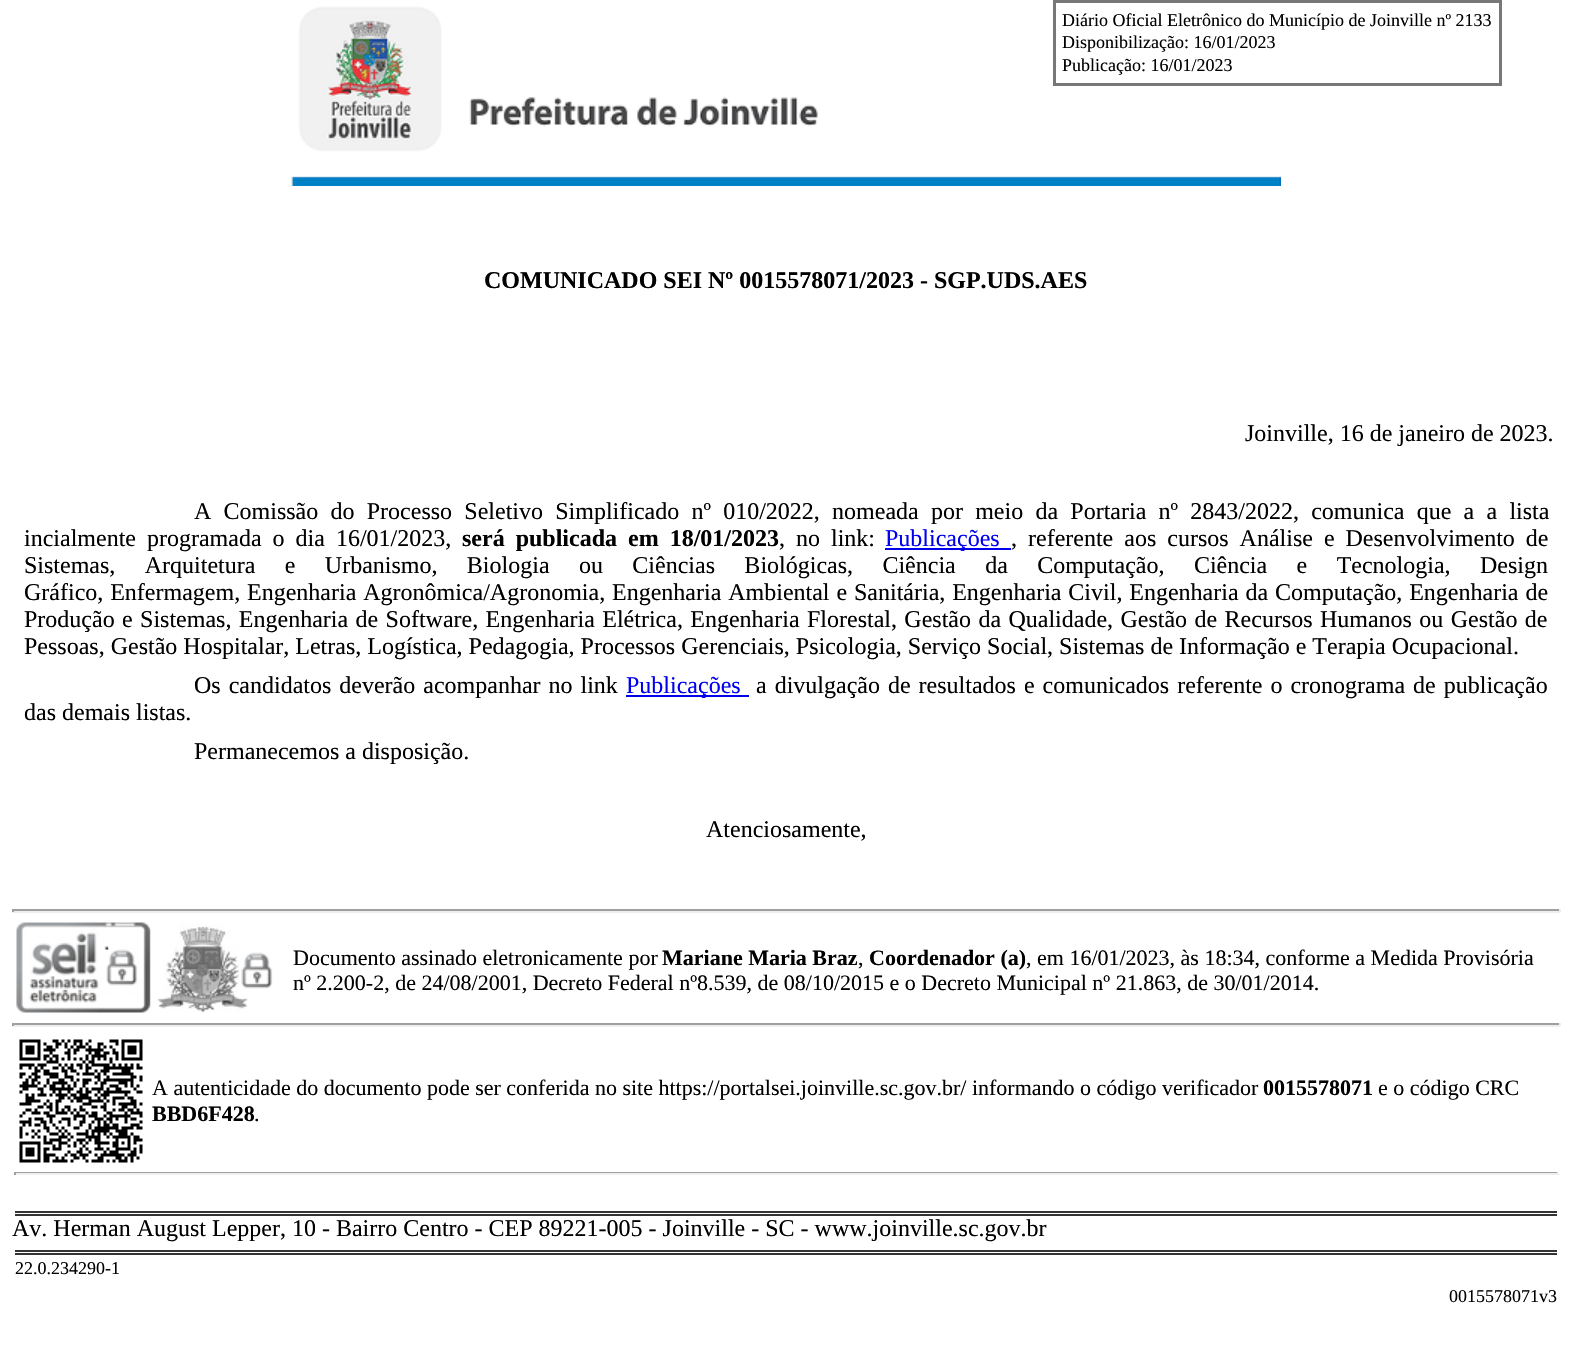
void draw(SkCanvas* c) {
SkPaint p;
p.setAntiAlias(true);
auto F=[&](const char* family, int weight, float size, bool italic = false){SkFontStyle style(weight, SkFontStyle::kNormal_Width,italic ? SkFontStyle::kItalic_Slant : SkFontStyle::kUpright_Slant);SkFont result(fontMgr->matchFamilyStyle(family, style), size);result.setSubpixel(true);return result;};
auto T=[&](const char* s, float x, float y, const SkFont& font){c->drawString(s, x, y, font, p);};
auto L=[&](const char* s, float x, float y, const SkFont& font, const SkPaint& ink, float letter, float word){std::vector<SkGlyphID> glyphs(font.countText(s, strlen(s), SkTextEncoding::kUTF8));std::vector<float> xs(glyphs.size());font.textToGlyphs(s, strlen(s), SkTextEncoding::kUTF8, glyphs);font.getXPos(glyphs, xs, x);float extra = 0;for (size_t i = 0; i < glyphs.size(); i++) {xs[i] += extra;extra += letter + word * (glyphs[i] == font.unicharToGlyph(' '));}c->drawTextBlob(SkTextBlob::MakeFromPosHGlyphs(glyphs, xs, y, font), 0, 0, ink);};
auto R=[&](float x, float y, float w, float h){c->drawRect(SkRect::MakeXYWH(x, y, w, h), p);};
auto I=[&](const char* path, float x, float y, float w, float h){auto image = SkImages::DeferredFromEncodedData(SkData::MakeFromFileName(path));c->drawImageRect(image, SkRect::MakeXYWH(x, y, w, h), SkSamplingOptions());};
c->clear(0xffffffff);
I("1.png",291,6,990,180);
p.setStroke(true);
p.setStrokeWidth(3);
p.setColor(0xff777777);
c->drawRect(SkRect::MakeXYWH(1054.5,1.5,446,83),p);
auto f1 = F("Liberation Serif",400,18);
p.setStroke(false);
p.setColor(0xff000000);
T("Diário Oficial Eletrônico do Município de Joinville nº 2133",1062,26,f1);
T("Disponibilização: 16/01/2023",1062,48,f1);
T("Publicação: 16/01/2023",1062,71,f1);
auto f2 = F("Liberation Serif",700,24);
T("COMUNICADO SEI Nº 0015578071/2023 - SGP.UDS.AES",484,288,f2);
auto f3 = F("Liberation Serif",400,24);
T("Joinville, 16 de janeiro de 2023.",1245,441,f3);
L("A Comissão do Processo Seletivo Simplificado nº 010/2022, nomeada por meio da Portaria nº 2843/2022, comunica que a a lista",194,519,f3,p,0,6.25);
L("incialmente programada o dia 16/01/2023,",24,546,f3,p,0,5);
L("será publicada em 18/01/2023",462,546,f2,p,0,5);
L(", no link:",779,546,f3,p,0,5);
p.setColor(0xff0000ee);
R(885,548,126,2);
T("Publicações",885,546,f3);
p.setColor(0xff000000);
L(", referente aos cursos Análise e Desenvolvimento de",1011,546,f3,p,0,5);
L("Sistemas, Arquitetura e Urbanismo, Biologia ou Ciências Biológicas, Ciência da Computação, Ciência e Tecnologia, Design",24,573,f3,p,0,23.4);
L("Gráfico, Enfermagem, Engenharia Agronômica/Agronomia, Engenharia Ambiental e Sanitária, Engenharia Civil, Engenharia da Computação, Engenharia de",24,600,f3,p,0,.9);
L("Produção e Sistemas, Engenharia de Software, Engenharia Elétrica, Engenharia Florestal, Gestão da Qualidade, Gestão de Recursos Humanos ou Gestão de",24,627,f3,p,0,1.4);
T("Pessoas, Gestão Hospitalar, Letras, Logística, Pedagogia, Processos Gerenciais, Psicologia, Serviço Social, Sistemas de Informação e Terapia Ocupacional.",24,654,f3);
L("Os candidatos deverão acompanhar no link",194,693,f3,p,0,2);
p.setColor(0xff0000ee);
R(626,695,123,2);
T("Publicações",626,693,f3);
p.setColor(0xff000000);
L("a divulgação de resultados e comunicados referente o cronograma de publicação",756,693,f3,p,0,2);
T("das demais listas.",24,720,f3);
T("Permanecemos a disposição.",194,759,f3);
T("Atenciosamente,",706,837,f3);
p.setColor(0xff9f9f9f);
R(12,909,1548,2);
p.setColor(0xffeeeeee);
R(1559,909,2,3);
R(12,911,1548,2);
p.setColor(0xff9f9f9f);
R(12,909,2,3);
I("2.png",16,922,257,91);
auto f4 = F("Liberation Serif",400,22);
p.setColor(0xff000000);
T("Documento assinado eletronicamente por",293,965,f4);
auto f5 = F("Liberation Serif",700,22);
T("Mariane Maria Braz",662,965,f5);
T(",",858,965,f4);
T("Coordenador (a)",869,965,f5);
T(", em 16/01/2023, às 18:34, conforme a Medida Provisória",1026,965,f4);
T("nº 2.200-2, de 24/08/2001, Decreto Federal nº8.539, de 08/10/2015 e o Decreto Municipal nº 21.863, de 30/01/2014.",293,990,f4);
p.setColor(0xff9f9f9f);
R(12,1023,1548,2);
p.setColor(0xffeeeeee);
R(1559,1023,2,3);
R(12,1025,1548,2);
p.setColor(0xff9f9f9f);
R(12,1023,2,3);
I("3.png",19,1039,124,124);
p.setColor(0xff000000);
T("A autenticidade do documento pode ser conferida no site https://portalsei.joinville.sc.gov.br/ informando o código verificador",152,1095,f4);
T("0015578071",1263,1095,f5);
T("e o código CRC",1378,1095,f4);
T("BBD6F428",152,1121,f5);
T(".",254,1121,f4);
p.setColor(0xff9f9f9f);
R(14,1172,1545,1);
p.setColor(0xffeeeeee);
R(1557,1172,2,3);
R(14,1173,1545,2);
p.setColor(0xff9f9f9f);
R(14,1172,2,3);
p.setColor(0xff333333);
R(15,1211,1542,2);
R(15,1214,1542,2);
p.setColor(0xff000000);
T("Av. Herman August Lepper, 10 - Bairro Centro - CEP 89221-005 - Joinville - SC - www.joinville.sc.gov.br",12,1236,f3);
p.setColor(0xff333333);
R(15,1250,1542,2);
R(15,1253,1542,2);
p.setColor(0xff000000);
T("22.0.234290-1",15,1274,f1);
T("0015578071v3",1449,1302,f1);
}
